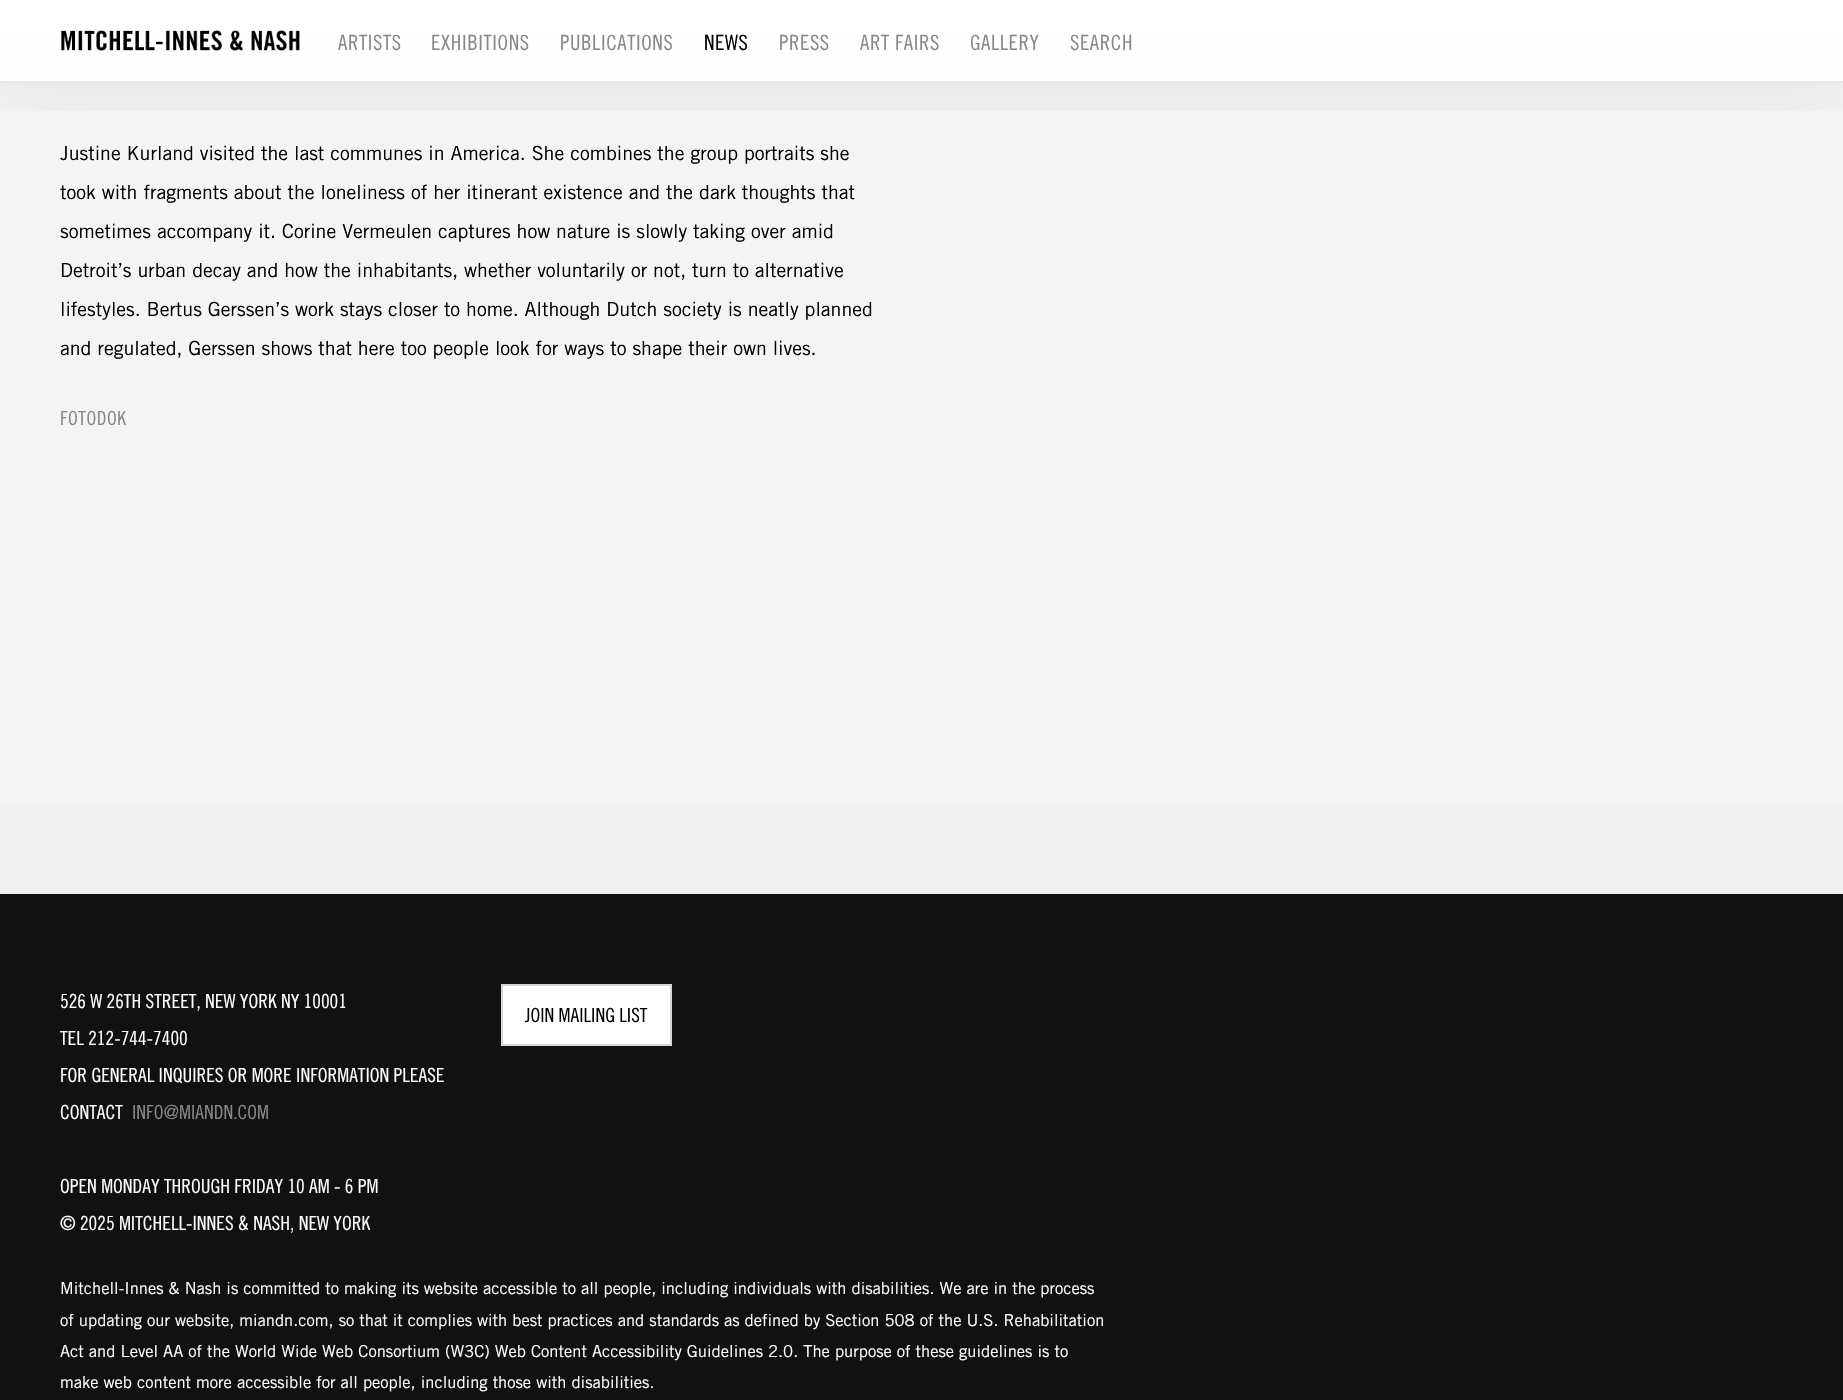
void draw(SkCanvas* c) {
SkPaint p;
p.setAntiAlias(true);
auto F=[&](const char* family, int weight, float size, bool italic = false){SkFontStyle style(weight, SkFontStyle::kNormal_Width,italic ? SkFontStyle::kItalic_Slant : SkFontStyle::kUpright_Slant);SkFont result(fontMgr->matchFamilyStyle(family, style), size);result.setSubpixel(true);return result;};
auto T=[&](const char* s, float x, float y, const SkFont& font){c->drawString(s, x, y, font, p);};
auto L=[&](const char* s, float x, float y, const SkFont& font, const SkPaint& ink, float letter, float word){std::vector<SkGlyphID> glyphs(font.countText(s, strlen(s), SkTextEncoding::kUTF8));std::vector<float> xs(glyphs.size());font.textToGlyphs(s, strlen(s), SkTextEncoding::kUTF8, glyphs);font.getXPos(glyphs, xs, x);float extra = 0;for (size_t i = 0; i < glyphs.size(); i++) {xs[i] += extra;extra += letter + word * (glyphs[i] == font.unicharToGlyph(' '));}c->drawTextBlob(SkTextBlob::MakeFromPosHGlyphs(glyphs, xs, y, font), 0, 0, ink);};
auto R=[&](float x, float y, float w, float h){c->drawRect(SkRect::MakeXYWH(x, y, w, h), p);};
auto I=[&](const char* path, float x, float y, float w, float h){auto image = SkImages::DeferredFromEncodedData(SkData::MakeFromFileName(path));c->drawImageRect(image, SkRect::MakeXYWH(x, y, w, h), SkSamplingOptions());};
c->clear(0xfff0f0f0);
{
const SkColor colors[] = {0xffffffff,0xfff4f4f4};
const float stops[] = {0,.52};
const SkPoint ends[] = {{922,-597}, {922,804}};
p.setShader(SkGradientShader::MakeLinear(ends, colors, stops, 2, SkTileMode::kClamp));
p.setAlpha(255);
}
R(0,0,1843,804);
c->save();
c->clipRect(SkRect::MakeXYWH(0,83,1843,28));
p.setShader(nullptr);
p.setColor(0x17000000);
p.setMaskFilter(SkMaskFilter::MakeBlur(kNormal_SkBlurStyle, 37.5));
c->drawRect(SkRect::MakeXYWH(0,0,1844,83),p);
p.setMaskFilter(nullptr);
c->restore();
{
const SkColor colors[] = {0xfcffffff,0xccffffff};
const float stops[] = {0,1};
const SkPoint ends[] = {{922,0}, {922,81}};
p.setShader(SkGradientShader::MakeLinear(ends, colors, stops, 2, SkTileMode::kClamp));
p.setAlpha(255);
}
R(0,0,1843,81);
p.setShader(nullptr);
p.setColor(0xffe9e9e9);
R(0,81,1843,2);
I("1.png",60,30,240,21);
auto f1 = F("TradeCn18",400,21);
p.setColor(0xff888888);
L("ARTISTS",338,50,f1,p,.6,0);
L("EXHIBITIONS",431,50,f1,p,.6,0);
L("PUBLICATIONS",560,50,f1,p,.6,0);
p.setColor(0xff000000);
L("NEWS",704,50,f1,p,.6,0);
p.setColor(0xff888888);
L("PRESS",779,50,f1,p,.6,0);
L("ART FAIRS",860,50,f1,p,.6,0);
L("GALLERY",970,50,f1,p,.6,0);
L("SEARCH",1070,50,f1,p,.6,0);
auto f2 = F("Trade",400,19.5);
p.setColor(0xff000000);
T("Justine Kurland visited the last communes in America. She combines the group portraits she",60,160,f2);
T("took with fragments about the loneliness of her itinerant existence and the dark thoughts that",60,199,f2);
T("sometimes accompany it. Corine Vermeulen captures how nature is slowly taking over amid",60,238,f2);
T("Detroit’s urban decay and how the inhabitants, whether voluntarily or not, turn to alternative",60,277,f2);
T("lifestyles. Bertus Gerssen’s work stays closer to home. Although Dutch society is neatly planned",60,316,f2);
T("and regulated, Gerssen shows that here too people look for ways to shape their own lives.",60,355,f2);
auto f3 = F("TradeCn18",400,19.5);
p.setColor(0xff888888);
L("FOTODOK",60,425,f3,p,.5,0);
p.setColor(0xff111111);
R(0,894,1843,506);
p.setColor(0xffffffff);
T("526 W 26TH STREET, NEW YORK NY 10001",60,1008,f3);
T("TEL 212-744-7400",60,1045,f3);
T("FOR GENERAL INQUIRES OR MORE INFORMATION PLEASE",60,1082,f3);
T("CONTACT",60,1119,f3);
p.setColor(0xff888888);
T("INFO@MIANDN.COM",132,1119,f3);
p.setColor(0xffffffff);
T("OPEN MONDAY THROUGH FRIDAY 10 AM - 6 PM",60,1193,f3);
T("© 2025 MITCHELL-INNES & NASH, NEW YORK",60,1230,f3);
c->drawRect(SkRect::MakeXYWH(502,985,169,60),p);
p.setStroke(true);
p.setStrokeWidth(2);
p.setColor(0xffd6d6d6);
c->drawRect(SkRect::MakeXYWH(502,985,169,60),p);
p.setStroke(false);
p.setColor(0xff000000);
T("JOIN MAILING LIST",525,1022,f3);
auto f4 = F("Trade",400,16.5);
p.setColor(0xffffffff);
T("Mitchell-Innes & Nash is committed to making its website accessible to all people, including individuals with disabilities. We are in the process",60,1294,f4);
T("of updating our website, miandn.com, so that it complies with best practices and standards as defined by Section 508 of the U.S. Rehabilitation",60,1326,f4);
T("Act and Level AA of the World Wide Web Consortium (W3C) Web Content Accessibility Guidelines 2.0. The purpose of these guidelines is to",60,1357,f4);
T("make web content more accessible for all people, including those with disabilities.",60,1388,f4);
}
